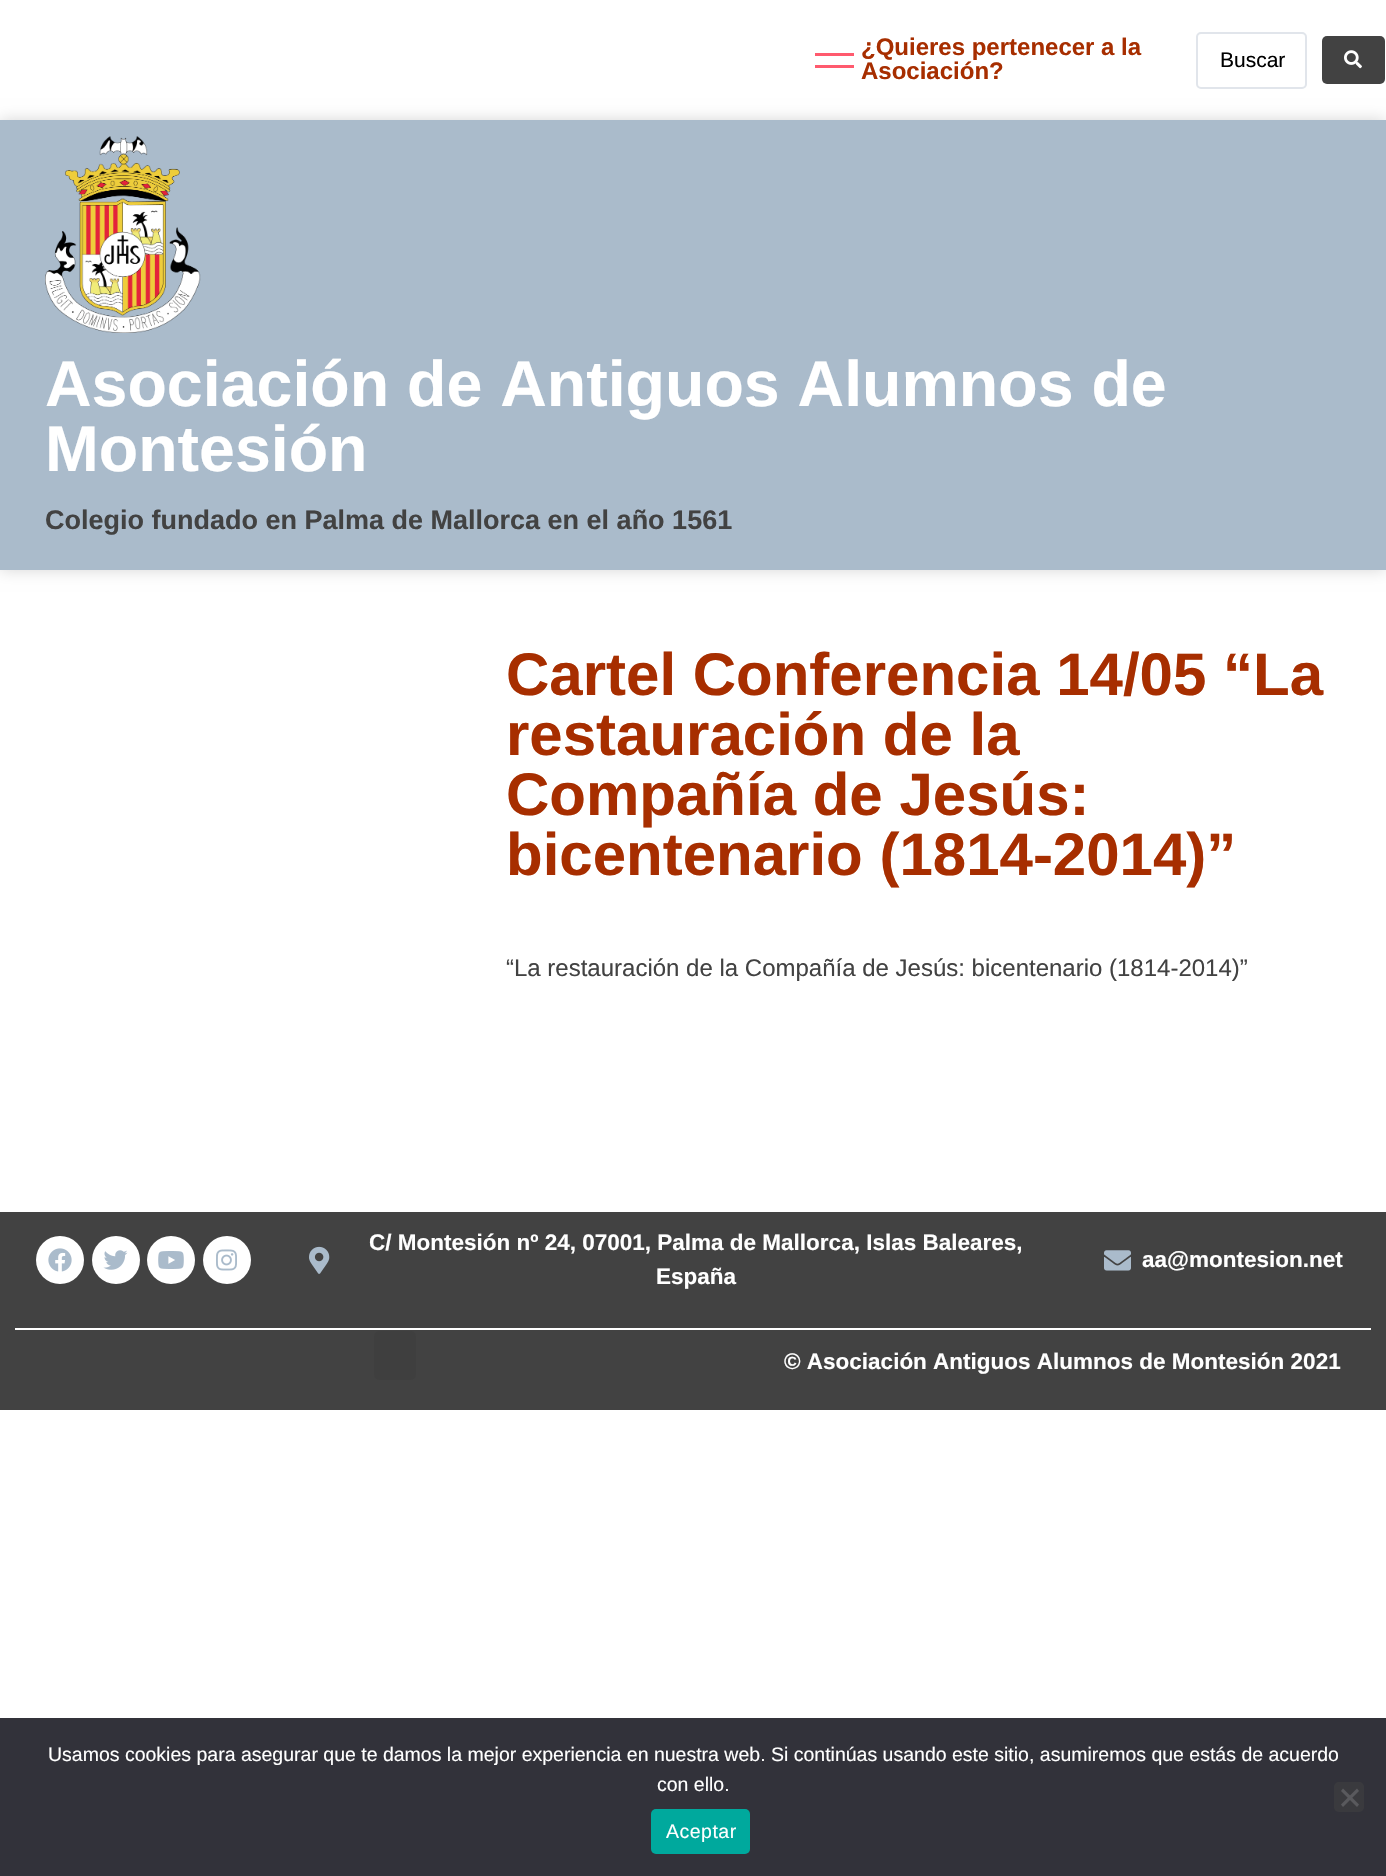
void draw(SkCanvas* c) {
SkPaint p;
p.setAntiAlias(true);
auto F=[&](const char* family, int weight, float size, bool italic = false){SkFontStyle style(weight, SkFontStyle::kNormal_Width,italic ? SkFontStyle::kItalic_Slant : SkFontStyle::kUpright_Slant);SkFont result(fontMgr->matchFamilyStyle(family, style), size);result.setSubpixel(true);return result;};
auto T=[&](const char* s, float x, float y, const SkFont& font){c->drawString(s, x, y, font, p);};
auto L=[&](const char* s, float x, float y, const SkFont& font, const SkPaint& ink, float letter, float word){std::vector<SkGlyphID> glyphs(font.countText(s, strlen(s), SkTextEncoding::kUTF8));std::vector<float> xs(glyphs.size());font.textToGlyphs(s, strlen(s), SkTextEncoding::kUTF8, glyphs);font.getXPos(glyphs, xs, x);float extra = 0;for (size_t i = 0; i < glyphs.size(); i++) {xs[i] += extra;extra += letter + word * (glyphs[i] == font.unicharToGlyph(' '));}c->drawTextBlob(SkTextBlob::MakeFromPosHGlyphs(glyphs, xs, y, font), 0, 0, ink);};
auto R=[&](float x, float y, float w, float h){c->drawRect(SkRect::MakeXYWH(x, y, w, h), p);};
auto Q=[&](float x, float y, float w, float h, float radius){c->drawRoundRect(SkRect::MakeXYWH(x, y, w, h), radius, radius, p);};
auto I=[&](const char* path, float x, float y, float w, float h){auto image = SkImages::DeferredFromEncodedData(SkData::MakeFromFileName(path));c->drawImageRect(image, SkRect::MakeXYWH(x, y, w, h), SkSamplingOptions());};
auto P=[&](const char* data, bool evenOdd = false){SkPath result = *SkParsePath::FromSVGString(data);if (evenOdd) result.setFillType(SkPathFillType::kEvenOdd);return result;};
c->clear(0xffffffff);
p.setColor(0xffff5a6e);
R(815,53,39,3);
R(815,65,39,3);
auto f1 = F("Liberation Sans",700,24);
p.setColor(0xffa72e00);
T("¿Quieres pertenecer a la",861,55,f1);
T("Asociación?",861,79,f1);
p.setStroke(true);
p.setStrokeWidth(2);
p.setColor(0xffe1e5eb);
c->drawRoundRect(SkRect::MakeXYWH(1197,33,109,55),4,4,p);
auto f2 = F("Liberation Sans",400,21);
p.setStroke(false);
p.setColor(0xff000000);
T("Buscar",1220,67,f2);
p.setColor(0xff424242);
Q(1322,36,63,48,5);
I("1.png",1344,50,18,19);
p.setColor(0x29000000);
p.setMaskFilter(SkMaskFilter::MakeBlur(kNormal_SkBlurStyle, 7.5));
c->drawRect(SkRect::MakeXYWH(0,120,1386,450),p);
p.setMaskFilter(nullptr);
p.setColor(0xffaabbcb);
R(0,120,1386,450);
I("2.png",45,136,156,197);
auto f3 = F("Liberation Sans",700,64.5);
p.setColor(0xffffffff);
T("Asociación de Antiguos Alumnos de",45,406,f3);
T("Montesión",45,471,f3);
auto f4 = F("Liberation Sans",700,27);
p.setColor(0xff424242);
T("Colegio fundado en Palma de Mallorca en el año 1561",45,529,f4);
auto f5 = F("Liberation Sans",700,60);
p.setColor(0xffa72e00);
T("Cartel Conferencia 14/05 “La",506,695,f5);
T("restauración de la",506,755,f5);
T("Compañía de Jesús:",506,815,f5);
T("bicentenario (1814-2014)”",506,875,f5);
auto f6 = F("Liberation Sans",400,24);
p.setColor(0xff424242);
T("“La restauración de la Compañía de Jesús: bicentenario (1814-2014)”",506,976,f6);
R(0,1212,1386,198);
p.setColor(0xffffffff);
c->drawCircle(60,1260,24,p);
I("3.png",48,1248,24,24);
c->drawCircle(116,1260,24,p);
I("4.png",103,1250,25,20);
c->drawCircle(171,1260,24,p);
I("5.png",158,1251,26,18);
c->drawCircle(227,1260,24,p);
I("6.png",216,1249,21,22);
I("7.png",309,1246,21,28);
auto f7 = F("Liberation Sans",700,22.5);
T("C/ Montesión nº 24, 07001, Palma de Mallorca, Islas Baleares,",369,1250,f7);
T("España",656,1284,f7);
I("8.png",1104,1250,27,21);
T("aa@montesion.net",1142,1267,f7);
R(15,1328,1356,2);
p.setColor(0xff3f3f3f);
Q(374,1331,42,49,5);
p.setColor(0xffffffff);
T("© Asociación Antiguos Alumnos de Montesión 2021",784,1369,f7);
p.setColor(0xff32323a);
R(0,1718,1386,158);
auto f8 = F("Liberation Sans",400,19.5);
p.setColor(0xffffffff);
T("Usamos cookies para asegurar que te damos la mejor experiencia en nuestra web. Si continúas usando este sitio, asumiremos que estás de acuerdo",48,1761,f8);
T("con ello.",657,1791,f8);
p.setColor(0xff3a3a3e);
Q(1334,1782,30,30,5);
p.setColor(0xff59595d);
c->drawPath(P("M1357 1788.5l2 2.5l-16 16l-2-2.5z"),p);
c->drawPath(P("M1341 1791l2-2.5l16 16l-2 2.5z"),p);
p.setColor(0xff00a99d);
Q(651,1809,99,45,5);
p.setColor(0xffffffff);
L("Aceptar",666,1838,f8,p,.5,0);
}
